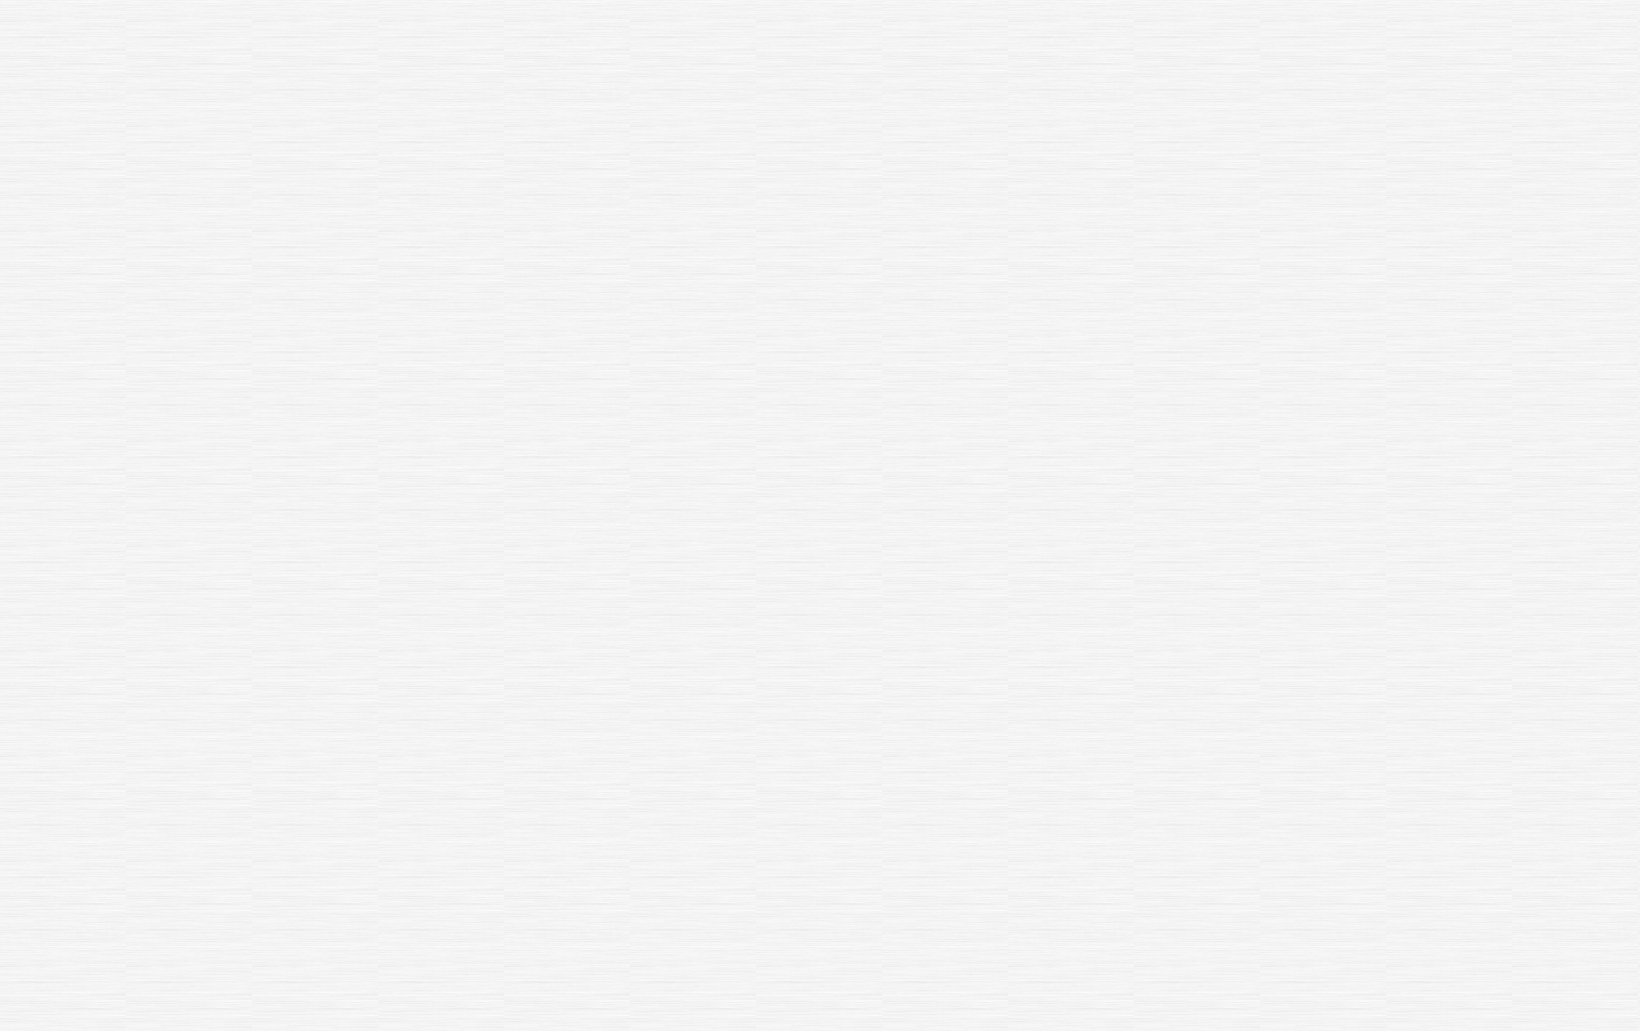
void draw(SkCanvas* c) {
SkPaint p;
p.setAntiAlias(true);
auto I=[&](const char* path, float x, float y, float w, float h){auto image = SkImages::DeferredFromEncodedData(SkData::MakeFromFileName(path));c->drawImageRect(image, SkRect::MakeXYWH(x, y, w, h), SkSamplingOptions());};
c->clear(0xffffffff);
I("1.png",0,0,1640,1031);
}
